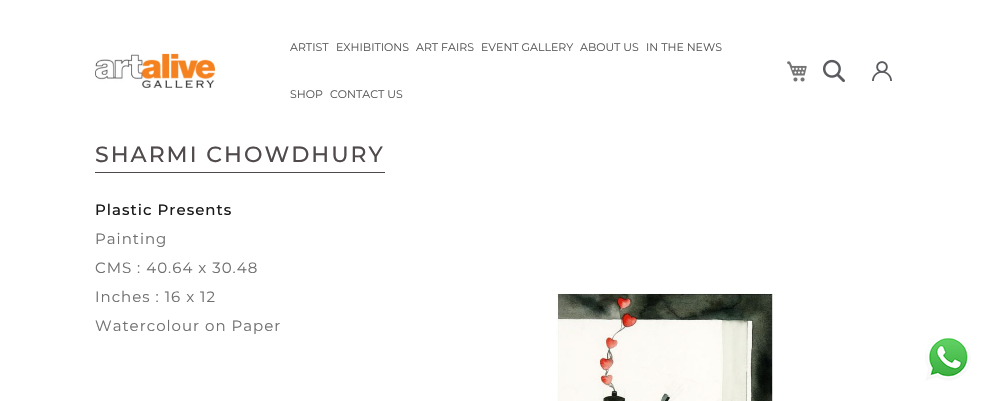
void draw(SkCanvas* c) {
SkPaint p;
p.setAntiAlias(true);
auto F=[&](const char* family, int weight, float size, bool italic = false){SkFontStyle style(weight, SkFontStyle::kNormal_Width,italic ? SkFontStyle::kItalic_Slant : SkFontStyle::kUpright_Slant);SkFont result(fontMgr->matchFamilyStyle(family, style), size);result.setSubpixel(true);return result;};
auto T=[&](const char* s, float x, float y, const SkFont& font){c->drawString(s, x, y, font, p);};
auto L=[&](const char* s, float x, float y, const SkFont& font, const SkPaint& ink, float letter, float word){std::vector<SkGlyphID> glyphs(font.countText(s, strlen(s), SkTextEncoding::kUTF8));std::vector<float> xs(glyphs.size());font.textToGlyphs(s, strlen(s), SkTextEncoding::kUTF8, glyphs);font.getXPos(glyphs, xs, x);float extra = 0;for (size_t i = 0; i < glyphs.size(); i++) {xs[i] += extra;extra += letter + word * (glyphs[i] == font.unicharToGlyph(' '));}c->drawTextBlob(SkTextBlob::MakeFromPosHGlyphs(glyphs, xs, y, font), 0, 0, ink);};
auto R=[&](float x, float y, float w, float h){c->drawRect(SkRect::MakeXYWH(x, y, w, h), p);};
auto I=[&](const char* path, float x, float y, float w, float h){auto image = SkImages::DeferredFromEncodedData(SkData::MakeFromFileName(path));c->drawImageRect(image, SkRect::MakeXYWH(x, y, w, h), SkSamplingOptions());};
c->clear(0xffffffff);
I("1.png",95,53,120,35);
auto f1 = F("Montserrat",400,11);
p.setColor(0xff575757);
T("ARTIST",290,51,f1);
T("EXHIBITIONS",336,51,f1);
T("ART FAIRS",416,51,f1);
T("EVENT GALLERY",481,51,f1);
T("ABOUT US",580,51,f1);
T("IN THE NEWS",646,51,f1);
T("SHOP",290,98,f1);
T("CONTACT US",330,98,f1);
I("2.png",787,61,20,21);
I("3.png",823,59,22,24);
I("4.png",872,61,20,20);
p.setColor(0xff504a4a);
R(95,172,290,1);
auto f2 = F("Montserrat",500,22);
L("SHARMI CHOWDHURY",95,162,f2,p,2,0);
auto f3 = F("Montserrat",500,15);
p.setColor(0xff1a1818);
L("Plastic Presents",95,215,f3,p,1,0);
auto f4 = F("Montserrat",400,15);
p.setColor(0xff707070);
L("Painting",95,244,f4,p,1,0);
L("CMS : 40.64 x 30.48",95,273,f4,p,1,0);
L("Inches : 16 x 12",95,302,f4,p,1,0);
L("Watercolour on Paper",95,331,f4,p,1,0);
I("5.png",556,293,217,108);
I("6.png",925,338,46,43);
}
